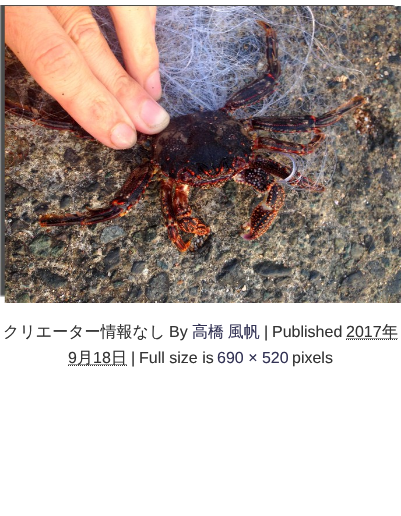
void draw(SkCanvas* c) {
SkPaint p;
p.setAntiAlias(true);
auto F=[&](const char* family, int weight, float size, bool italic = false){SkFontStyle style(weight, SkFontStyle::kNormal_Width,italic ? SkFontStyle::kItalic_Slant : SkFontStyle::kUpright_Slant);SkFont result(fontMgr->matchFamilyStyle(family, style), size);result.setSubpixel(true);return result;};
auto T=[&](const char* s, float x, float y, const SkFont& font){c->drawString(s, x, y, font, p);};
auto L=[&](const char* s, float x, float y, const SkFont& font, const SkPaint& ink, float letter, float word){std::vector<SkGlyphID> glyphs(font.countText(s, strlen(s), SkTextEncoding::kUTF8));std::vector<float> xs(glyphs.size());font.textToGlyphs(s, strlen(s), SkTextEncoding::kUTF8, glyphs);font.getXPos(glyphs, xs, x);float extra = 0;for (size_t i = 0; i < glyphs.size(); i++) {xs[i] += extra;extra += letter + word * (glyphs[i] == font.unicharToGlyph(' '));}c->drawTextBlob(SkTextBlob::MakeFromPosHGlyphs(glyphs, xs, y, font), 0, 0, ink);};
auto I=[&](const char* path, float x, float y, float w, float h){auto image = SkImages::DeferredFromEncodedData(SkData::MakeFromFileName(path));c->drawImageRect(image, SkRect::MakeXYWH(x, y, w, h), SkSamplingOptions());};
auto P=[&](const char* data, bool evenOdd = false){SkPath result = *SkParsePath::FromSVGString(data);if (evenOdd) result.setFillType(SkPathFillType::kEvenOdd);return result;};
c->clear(0xffffffff);
I("1.png",0,5,401,298);
auto f1 = F("WenQuanYi Zen Hei",500,16);
p.setColor(0xff333333);
T("クリエーター情報なし",3,337,f1);
auto f2 = F("Liberation Sans",400,16);
T("By",169,337,f2);
p.setColor(0xff333355);
L("高橋 風帆",192,337,f1,p,0,-1);
p.setColor(0xff333333);
T("|",264,337,f2);
T("Published",272,337,f2);
T("2017",346,337,f2);
p.setStroke(true);
p.setStrokeWidth(1);
p.setPathEffect(SkDashPathEffect::Make({{1,1}}, 0));
c->drawPath(P("M346 339.5h52"),p);
p.setPathEffect(nullptr);
p.setPathEffect(SkDashPathEffect::Make({{1,1}}, 0));
c->drawPath(P("M346.5 338.5h51.5"),p);
p.setPathEffect(nullptr);
p.setStroke(false);
T("年",382,337,f1);
T("9",68,363,f2);
p.setStroke(true);
p.setPathEffect(SkDashPathEffect::Make({{1,1}}, 0));
c->drawPath(P("M68 365.5h59"),p);
p.setPathEffect(nullptr);
p.setPathEffect(SkDashPathEffect::Make({{1,1}}, 0));
c->drawPath(P("M68.5 364.5h58.5"),p);
p.setPathEffect(nullptr);
p.setStroke(false);
T("月",77,363,f1);
T("18",93,363,f2);
T("日",111,363,f1);
T("|",131,363,f2);
T("Full size is",139,363,f2);
p.setColor(0xff333355);
T("690 × 520",217,363,f2);
p.setColor(0xff333333);
T("pixels",292,363,f2);
}
